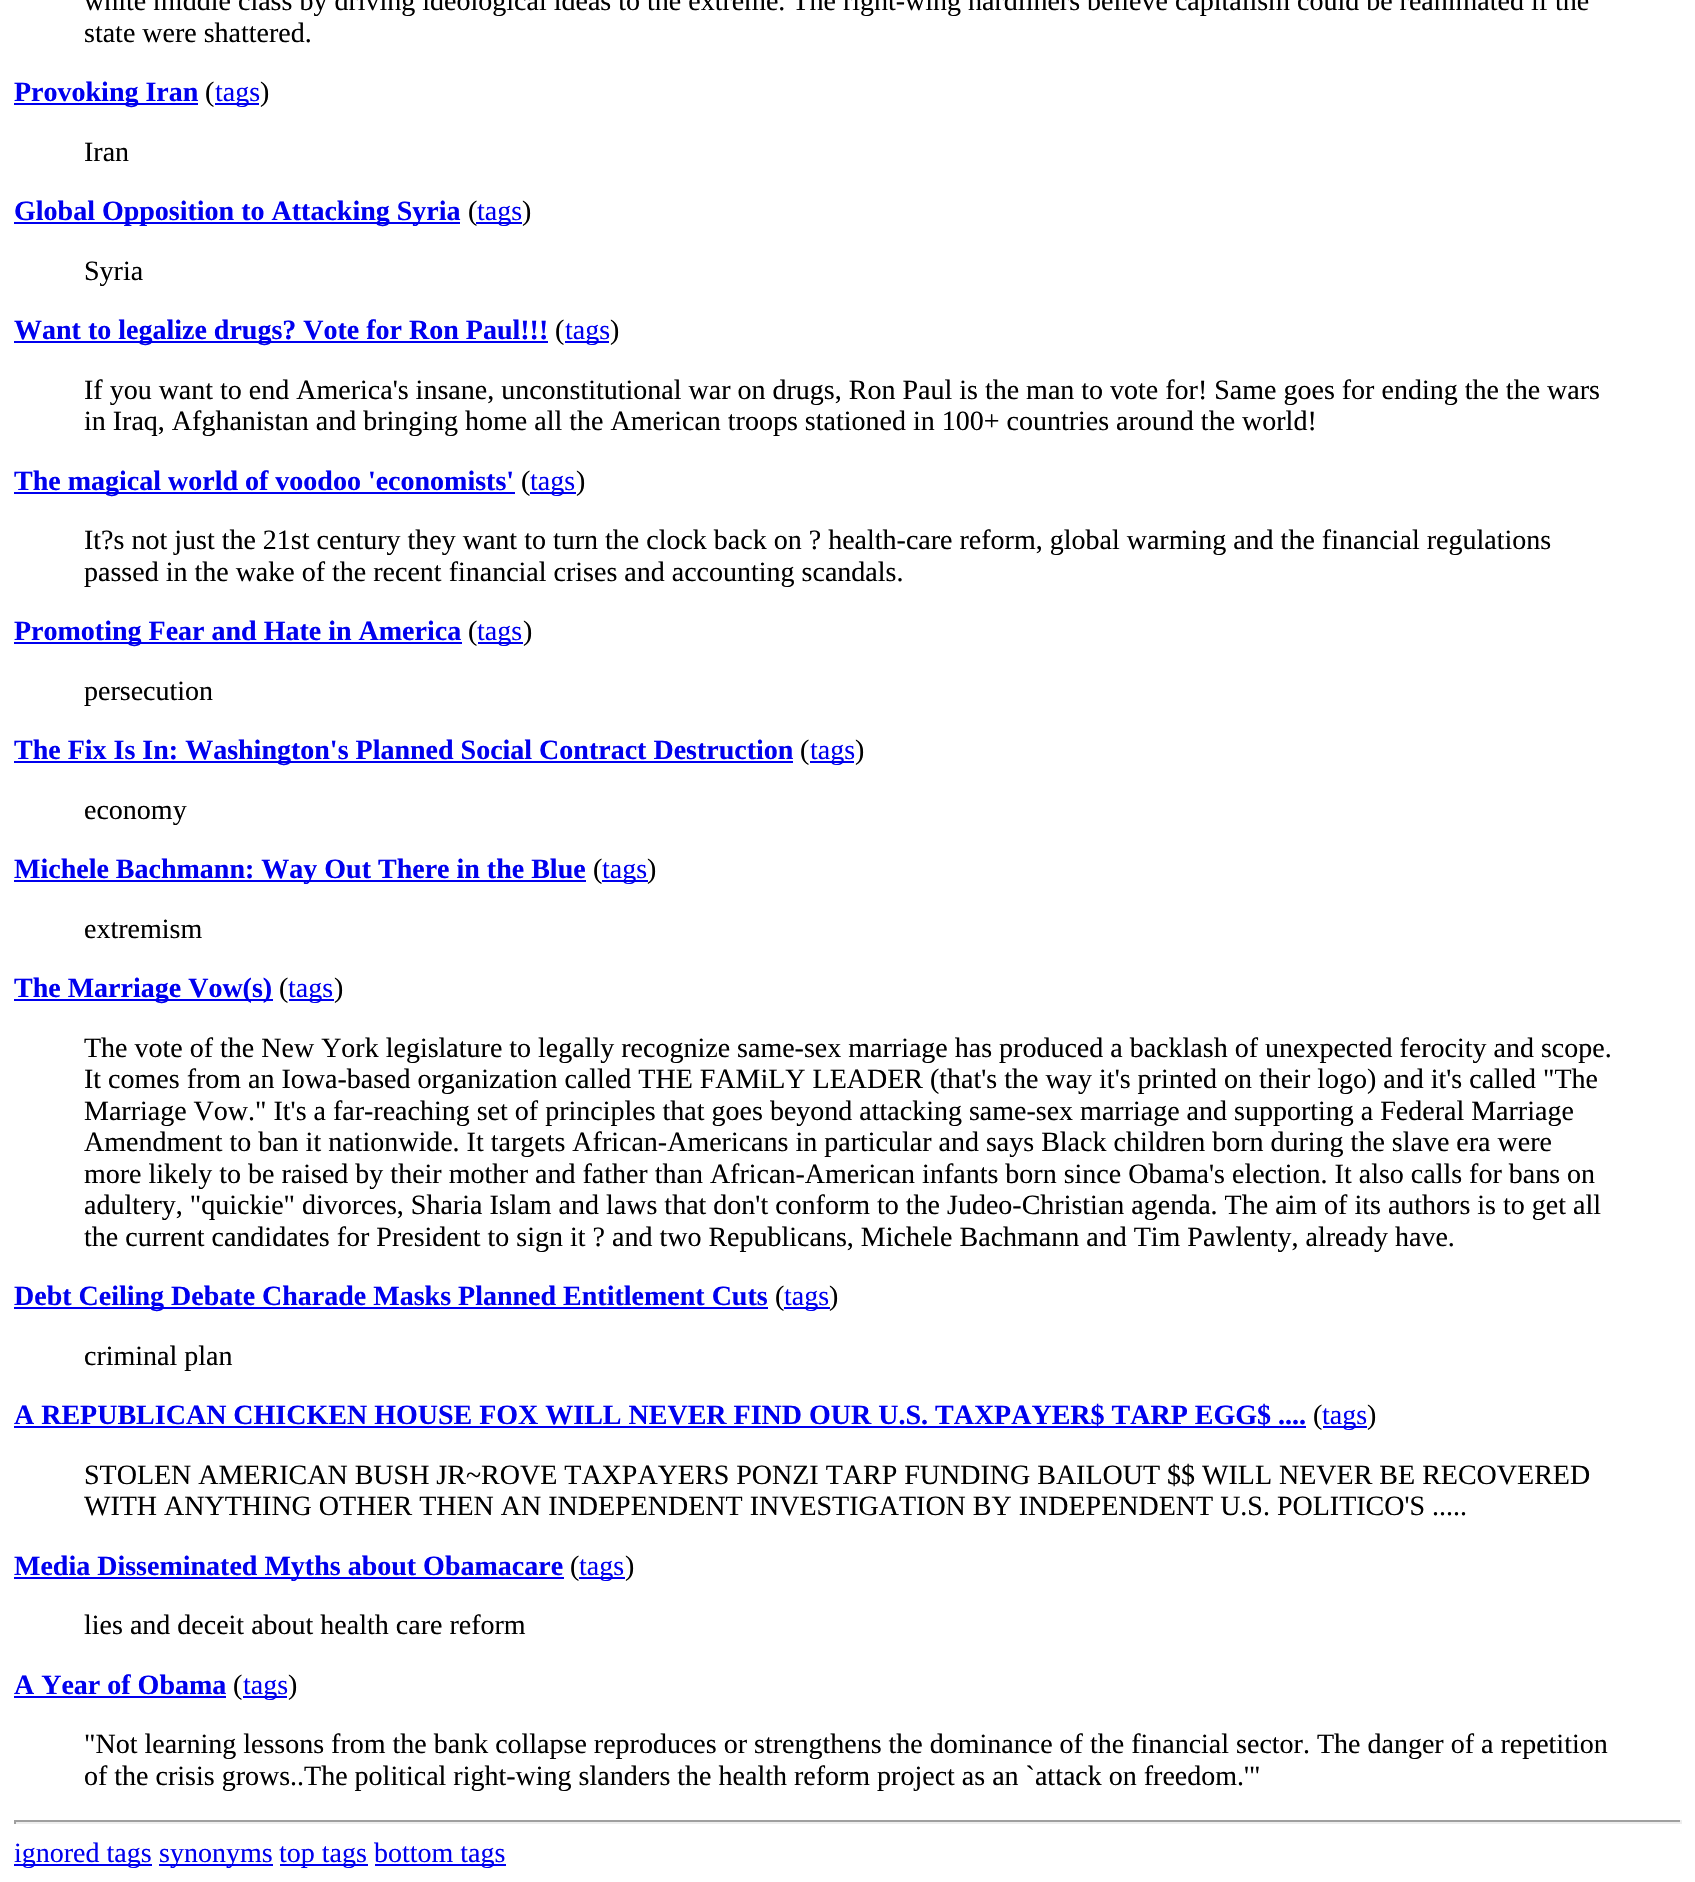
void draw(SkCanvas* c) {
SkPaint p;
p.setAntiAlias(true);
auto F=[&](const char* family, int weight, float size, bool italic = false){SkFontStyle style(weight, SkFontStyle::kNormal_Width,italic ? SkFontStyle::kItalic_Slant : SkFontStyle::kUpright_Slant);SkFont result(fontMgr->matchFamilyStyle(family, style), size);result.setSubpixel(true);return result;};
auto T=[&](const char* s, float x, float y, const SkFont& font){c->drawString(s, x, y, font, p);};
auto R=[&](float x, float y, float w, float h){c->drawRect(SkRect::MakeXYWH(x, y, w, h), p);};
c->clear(0xffffffff);
auto f1 = F("Liberation Serif",400,28);
p.setColor(0xff000000);
T("white middle class by driving ideological ideas to the extreme. The right-wing hardliners believe capitalism could be reanimated if the",84,10,f1);
T("state were shattered.",84,42,f1);
p.setColor(0xff0000ee);
R(14,103,184,2);
auto f2 = F("Liberation Serif",700,28);
T("Provoking Iran",14,101,f2);
p.setColor(0xff000000);
T("(",205,101,f1);
p.setColor(0xff0000ee);
R(215,103,44,2);
T("tags",215,101,f1);
p.setColor(0xff000000);
T(")",260,101,f1);
T("Iran",84,161,f1);
p.setColor(0xff0000ee);
R(14,222,446,2);
T("Global Opposition to Attacking Syria",14,220,f2);
p.setColor(0xff000000);
T("(",468,220,f1);
p.setColor(0xff0000ee);
R(476,222,46,2);
T("tags",477,220,f1);
p.setColor(0xff000000);
T(")",522,220,f1);
T("Syria",84,280,f1);
p.setColor(0xff0000ee);
R(14,341,534,2);
T("Want to legalize drugs? Vote for Ron Paul!!!",14,339,f2);
p.setColor(0xff000000);
T("(",555,339,f1);
p.setColor(0xff0000ee);
R(565,341,44,2);
T("tags",565,339,f1);
p.setColor(0xff000000);
T(")",610,339,f1);
T("If you want to end America's insane, unconstitutional war on drugs, Ron Paul is the man to vote for! Same goes for ending the the wars",84,399,f1);
T("in Iraq, Afghanistan and bringing home all the American troops stationed in 100+ countries around the world!",84,430,f1);
p.setColor(0xff0000ee);
R(14,492,501,2);
T("The magical world of voodoo 'economists'",14,490,f2);
p.setColor(0xff000000);
T("(",521,490,f1);
p.setColor(0xff0000ee);
R(530,492,46,2);
T("tags",530,490,f1);
p.setColor(0xff000000);
T(")",576,490,f1);
T("It?s not just the 21st century they want to turn the clock back on ? health-care reform, global warming and the financial regulations",84,549,f1);
T("passed in the wake of the recent financial crises and accounting scandals.",84,581,f1);
p.setColor(0xff0000ee);
R(14,642,448,2);
T("Promoting Fear and Hate in America",14,640,f2);
p.setColor(0xff000000);
T("(",468,640,f1);
p.setColor(0xff0000ee);
R(478,642,45,2);
T("tags",477,640,f1);
p.setColor(0xff000000);
T(")",523,640,f1);
T("persecution",84,700,f1);
p.setColor(0xff0000ee);
R(14,761,779,2);
T("The Fix Is In: Washington's Planned Social Contract Destruction",14,759,f2);
p.setColor(0xff000000);
T("(",800,759,f1);
p.setColor(0xff0000ee);
R(810,761,44,2);
T("tags",810,759,f1);
p.setColor(0xff000000);
T(")",855,759,f1);
T("economy",84,819,f1);
p.setColor(0xff0000ee);
R(14,880,572,2);
T("Michele Bachmann: Way Out There in the Blue",14,878,f2);
p.setColor(0xff000000);
T("(",593,878,f1);
p.setColor(0xff0000ee);
R(602,880,46,2);
T("tags",602,878,f1);
p.setColor(0xff000000);
T(")",647,878,f1);
T("extremism",84,938,f1);
p.setColor(0xff0000ee);
R(14,999,259,2);
T("The Marriage Vow(s)",14,997,f2);
p.setColor(0xff000000);
T("(",279,997,f1);
p.setColor(0xff0000ee);
R(289,999,45,2);
T("tags",288,997,f1);
p.setColor(0xff000000);
T(")",334,997,f1);
T("The vote of the New York legislature to legally recognize same-sex marriage has produced a backlash of unexpected ferocity and scope.",84,1057,f1);
T("It comes from an Iowa-based organization called THE FAMiLY LEADER (that's the way it's printed on their logo) and it's called \"The",84,1088,f1);
T("Marriage Vow.\" It's a far-reaching set of principles that goes beyond attacking same-sex marriage and supporting a Federal Marriage",84,1120,f1);
T("Amendment to ban it nationwide. It targets African-Americans in particular and says Black children born during the slave era were",84,1151,f1);
T("more likely to be raised by their mother and father than African-American infants born since Obama's election. It also calls for bans on",84,1183,f1);
T("adultery, \"quickie\" divorces, Sharia Islam and laws that don't conform to the Judeo-Christian agenda. The aim of its authors is to get all",84,1214,f1);
T("the current candidates for President to sign it ? and two Republicans, Michele Bachmann and Tim Pawlenty, already have.",84,1246,f1);
p.setColor(0xff0000ee);
R(14,1307,754,2);
T("Debt Ceiling Debate Charade Masks Planned Entitlement Cuts",14,1305,f2);
p.setColor(0xff000000);
T("(",775,1305,f1);
p.setColor(0xff0000ee);
R(784,1307,46,2);
T("tags",784,1305,f1);
p.setColor(0xff000000);
T(")",829,1305,f1);
T("criminal plan",84,1365,f1);
p.setColor(0xff0000ee);
R(14,1426,1292,2);
T("A REPUBLICAN CHICKEN HOUSE FOX WILL NEVER FIND OUR U.S. TAXPAYER$ TARP EGG$ ....",14,1424,f2);
p.setColor(0xff000000);
T("(",1313,1424,f1);
p.setColor(0xff0000ee);
R(1323,1426,44,2);
T("tags",1322,1424,f1);
p.setColor(0xff000000);
T(")",1367,1424,f1);
T("STOLEN AMERICAN BUSH JR~ROVE TAXPAYERS PONZI TARP FUNDING BAILOUT $$ WILL NEVER BE RECOVERED",84,1484,f1);
T("WITH ANYTHING OTHER THEN AN INDEPENDENT INVESTIGATION BY INDEPENDENT U.S. POLITICO'S .....",84,1515,f1);
p.setColor(0xff0000ee);
R(14,1577,550,2);
T("Media Disseminated Myths about Obamacare",14,1575,f2);
p.setColor(0xff000000);
T("(",570,1575,f1);
p.setColor(0xff0000ee);
R(579,1577,46,2);
T("tags",579,1575,f1);
p.setColor(0xff000000);
T(")",625,1575,f1);
T("lies and deceit about health care reform",84,1634,f1);
p.setColor(0xff0000ee);
T("A Year of Obama",14,1694,f2);
R(14,1696,212,2);
p.setColor(0xff000000);
T("(",233,1694,f1);
p.setColor(0xff0000ee);
R(243,1696,44,2);
T("tags",243,1694,f1);
p.setColor(0xff000000);
T(")",288,1694,f1);
T("\"Not learning lessons from the bank collapse reproduces or strengthens the dominance of the financial sector. The danger of a repetition",84,1753,f1);
T("of the crisis grows..The political right-wing slanders the health reform project as an `attack on freedom.'\"",84,1785,f1);
p.setColor(0xff9f9f9f);
R(14,1820,1668,2);
p.setColor(0xffeeeeee);
R(1680,1820,2,4);
R(14,1822,1668,2);
p.setColor(0xff9f9f9f);
R(14,1820,2,4);
p.setColor(0xff0000ee);
R(14,1864,138,2);
T("ignored tags",14,1862,f1);
R(159,1864,114,2);
T("synonyms",159,1862,f1);
R(280,1864,88,2);
T("top tags",279,1862,f1);
R(375,1864,131,2);
T("bottom tags",374,1862,f1);
}
